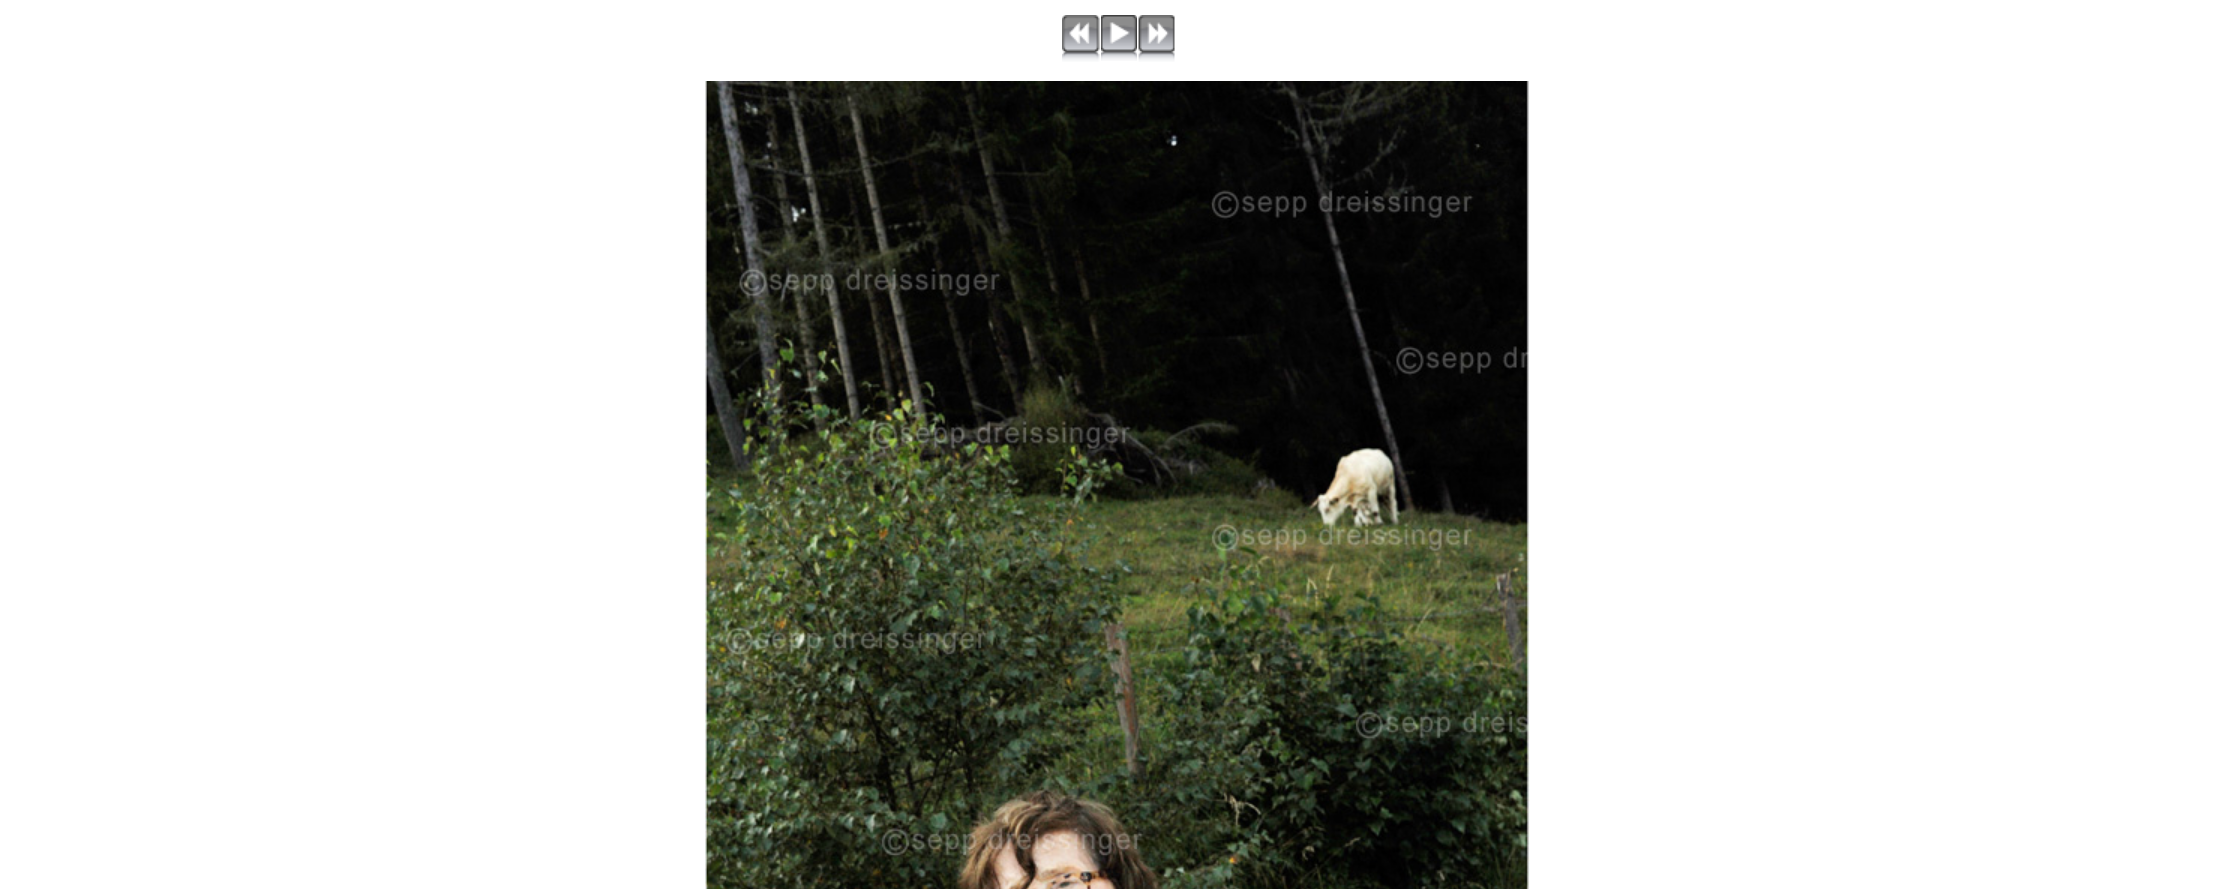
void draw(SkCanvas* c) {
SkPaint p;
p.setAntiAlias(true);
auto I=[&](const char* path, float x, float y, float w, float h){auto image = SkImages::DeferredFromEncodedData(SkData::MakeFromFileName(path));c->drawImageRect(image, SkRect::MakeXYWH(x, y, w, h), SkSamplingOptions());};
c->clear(0xffffffff);
I("1.png",1062,15,38,47);
I("2.png",1101,15,36,46);
I("3.png",1138,15,37,47);
I("4.png",705,81,825,808);
}
